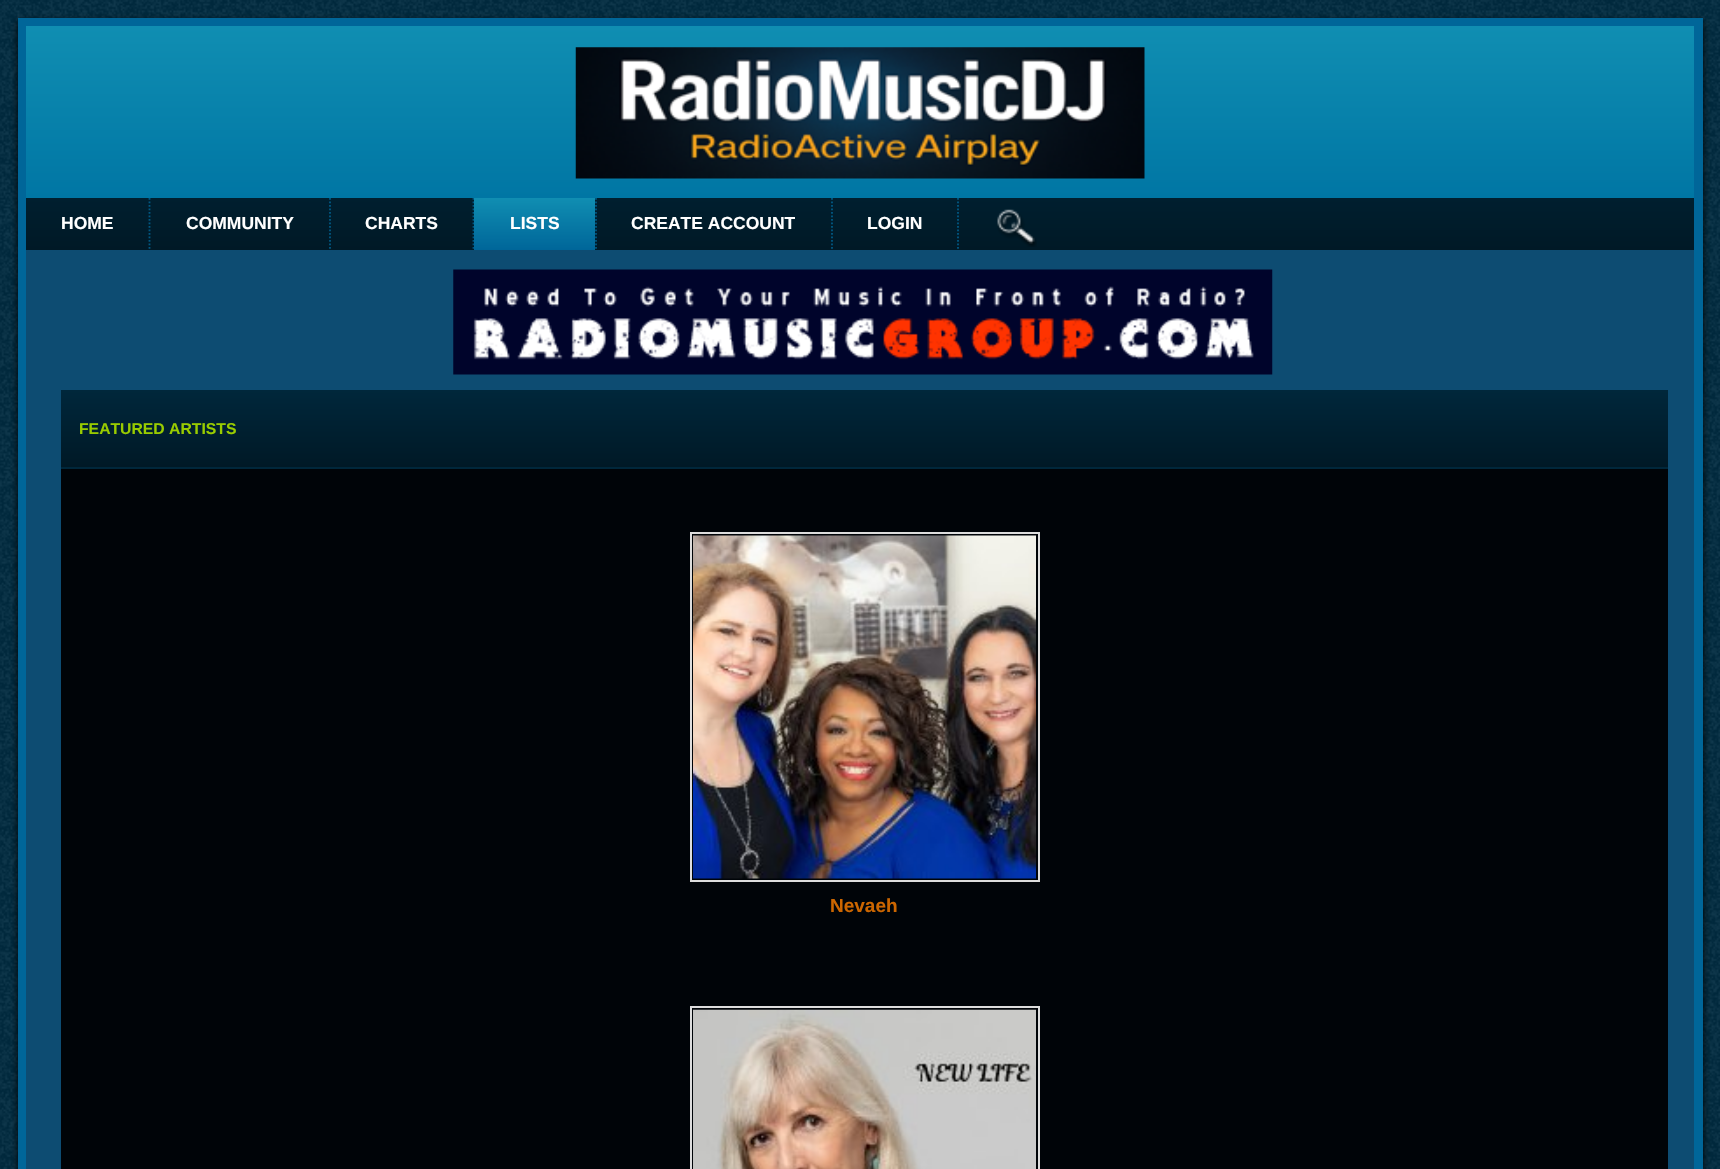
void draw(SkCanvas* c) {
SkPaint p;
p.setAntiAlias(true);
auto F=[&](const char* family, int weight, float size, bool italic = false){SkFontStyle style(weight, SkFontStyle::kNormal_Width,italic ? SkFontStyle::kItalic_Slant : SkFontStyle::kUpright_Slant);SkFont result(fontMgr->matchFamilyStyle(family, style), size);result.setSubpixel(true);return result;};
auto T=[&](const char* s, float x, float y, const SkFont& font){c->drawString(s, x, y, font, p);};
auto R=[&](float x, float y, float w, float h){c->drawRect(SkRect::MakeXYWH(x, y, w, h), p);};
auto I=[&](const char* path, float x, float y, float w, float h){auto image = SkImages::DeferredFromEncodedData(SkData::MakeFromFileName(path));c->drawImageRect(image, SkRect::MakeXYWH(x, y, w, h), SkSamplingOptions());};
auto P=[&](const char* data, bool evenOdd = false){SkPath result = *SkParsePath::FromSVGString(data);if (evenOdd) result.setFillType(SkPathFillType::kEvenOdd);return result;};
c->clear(0xff00324b);
I("1.png",0,0,1720,1169);
p.setColor(0xff000000);
p.setMaskFilter(SkMaskFilter::MakeBlur(kNormal_SkBlurStyle, 3.5));
c->drawRect(SkRect::MakeXYWH(18,21,1685,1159),p);
p.setMaskFilter(nullptr);
p.setStroke(true);
p.setStrokeWidth(9);
p.setColor(0xff006699);
c->drawRect(SkRect::MakeXYWH(22.5,22.5,1676,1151),p);
p.setStroke(false);
{
const SkColor colors[] = {0xff108eb2,0xff0076a4};
const float stops[] = {0,1};
const SkPoint ends[] = {{860,26}, {860,198}};
p.setShader(SkGradientShader::MakeLinear(ends, colors, stops, 2, SkTileMode::kClamp));
p.setAlpha(255);
}
R(26,26,1668,172);
I("2.png",575,47,570,132);
{
const SkColor colors[] = {0xff001f2f,0xff001926};
const float stops[] = {0,1};
const SkPoint ends[] = {{860,198}, {860,250}};
p.setShader(SkGradientShader::MakeLinear(ends, colors, stops, 2, SkTileMode::kClamp));
p.setAlpha(255);
}
R(26,198,1668,52);
auto f1 = F("Liberation Sans",700,17.5);
p.setShader(nullptr);
p.setColor(0xffffffff);
T("HOME",61,229,f1);
p.setStroke(true);
p.setStrokeWidth(1.8);
p.setColor(0xcc006699);
p.setPathEffect(SkDashPathEffect::Make({{1.75f,1.75f}}, 0));
c->drawPath(P("M149.5 198v52"),p);
p.setPathEffect(nullptr);
p.setStroke(false);
p.setColor(0xffffffff);
T("COMMUNITY",186,229,f1);
p.setStroke(true);
p.setColor(0xcc006699);
p.setPathEffect(SkDashPathEffect::Make({{1.75f,1.75f}}, 0));
c->drawPath(P("M330 198v52"),p);
p.setPathEffect(nullptr);
p.setStroke(false);
p.setColor(0xffffffff);
T("CHARTS",365,229,f1);
p.setStroke(true);
p.setColor(0xcc006699);
p.setPathEffect(SkDashPathEffect::Make({{1.75f,1.75f}}, 0));
c->drawPath(P("M473.5 198v52"),p);
p.setPathEffect(nullptr);
p.setStroke(false);
{
const SkColor colors[] = {0xff108eb2,0xff006699};
const float stops[] = {0,1};
const SkPoint ends[] = {{535,198}, {535,250}};
p.setShader(SkGradientShader::MakeLinear(ends, colors, stops, 2, SkTileMode::kClamp));
p.setAlpha(255);
}
R(474,198,121,52);
p.setShader(nullptr);
p.setColor(0xffffffff);
T("LISTS",510,229,f1);
p.setStroke(true);
p.setColor(0xcc006699);
p.setPathEffect(SkDashPathEffect::Make({{1.75f,1.75f}}, 0));
c->drawPath(P("M596 198v52"),p);
p.setPathEffect(nullptr);
p.setStroke(false);
p.setColor(0xffffffff);
T("CREATE ACCOUNT",631,229,f1);
p.setStroke(true);
p.setColor(0xcc006699);
p.setPathEffect(SkDashPathEffect::Make({{1.75f,1.75f}}, 0));
c->drawPath(P("M832 198v52"),p);
p.setPathEffect(nullptr);
p.setStroke(false);
p.setColor(0xffffffff);
T("LOGIN",867,229,f1);
p.setStroke(true);
p.setColor(0xcc006699);
p.setPathEffect(SkDashPathEffect::Make({{1.75f,1.75f}}, 0));
c->drawPath(P("M958 198v52"),p);
p.setPathEffect(nullptr);
I("3.png",997,209,40,38);
p.setStroke(false);
p.setColor(0xff0d4c72);
R(26,250,1668,919);
I("4.png",453,269,820,106);
{
const SkColor colors[] = {0xff00273b,0xff001926};
const float stops[] = {0,1};
const SkPoint ends[] = {{865,390}, {865,467}};
p.setShader(SkGradientShader::MakeLinear(ends, colors, stops, 2, SkTileMode::kClamp));
p.setAlpha(255);
}
R(61,390,1607,77);
{
const SkColor colors[] = {0xff00273b,0xff001926};
const float stops[] = {0,1};
const SkPoint ends[] = {{865,467}, {865,544}};
p.setShader(SkGradientShader::MakeLinear(ends, colors, stops, 2, SkTileMode::kClamp));
p.setAlpha(255);
}
R(61,467,1607,2);
auto f2 = F("Liberation Sans",700,15.75);
p.setShader(nullptr);
p.setColor(0xff99cc00);
T("FEATURED ARTISTS",79,434,f2);
p.setColor(0xff000408);
R(61,469,1607,700);
p.setStroke(true);
p.setStrokeWidth(2);
p.setColor(0xffdddddd);
c->drawRect(SkRect::MakeXYWH(691,533,348,348),p);
I("5.png",693,535,343,344);
auto f3 = F("Liberation Sans",700,19);
p.setStroke(false);
p.setColor(0xffcc6600);
T("Nevaeh",830,912,f3);
p.setStroke(true);
p.setColor(0xffdddddd);
c->drawRect(SkRect::MakeXYWH(691,1007,348,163),p);
I("6.png",693,1009,343,160);
}
